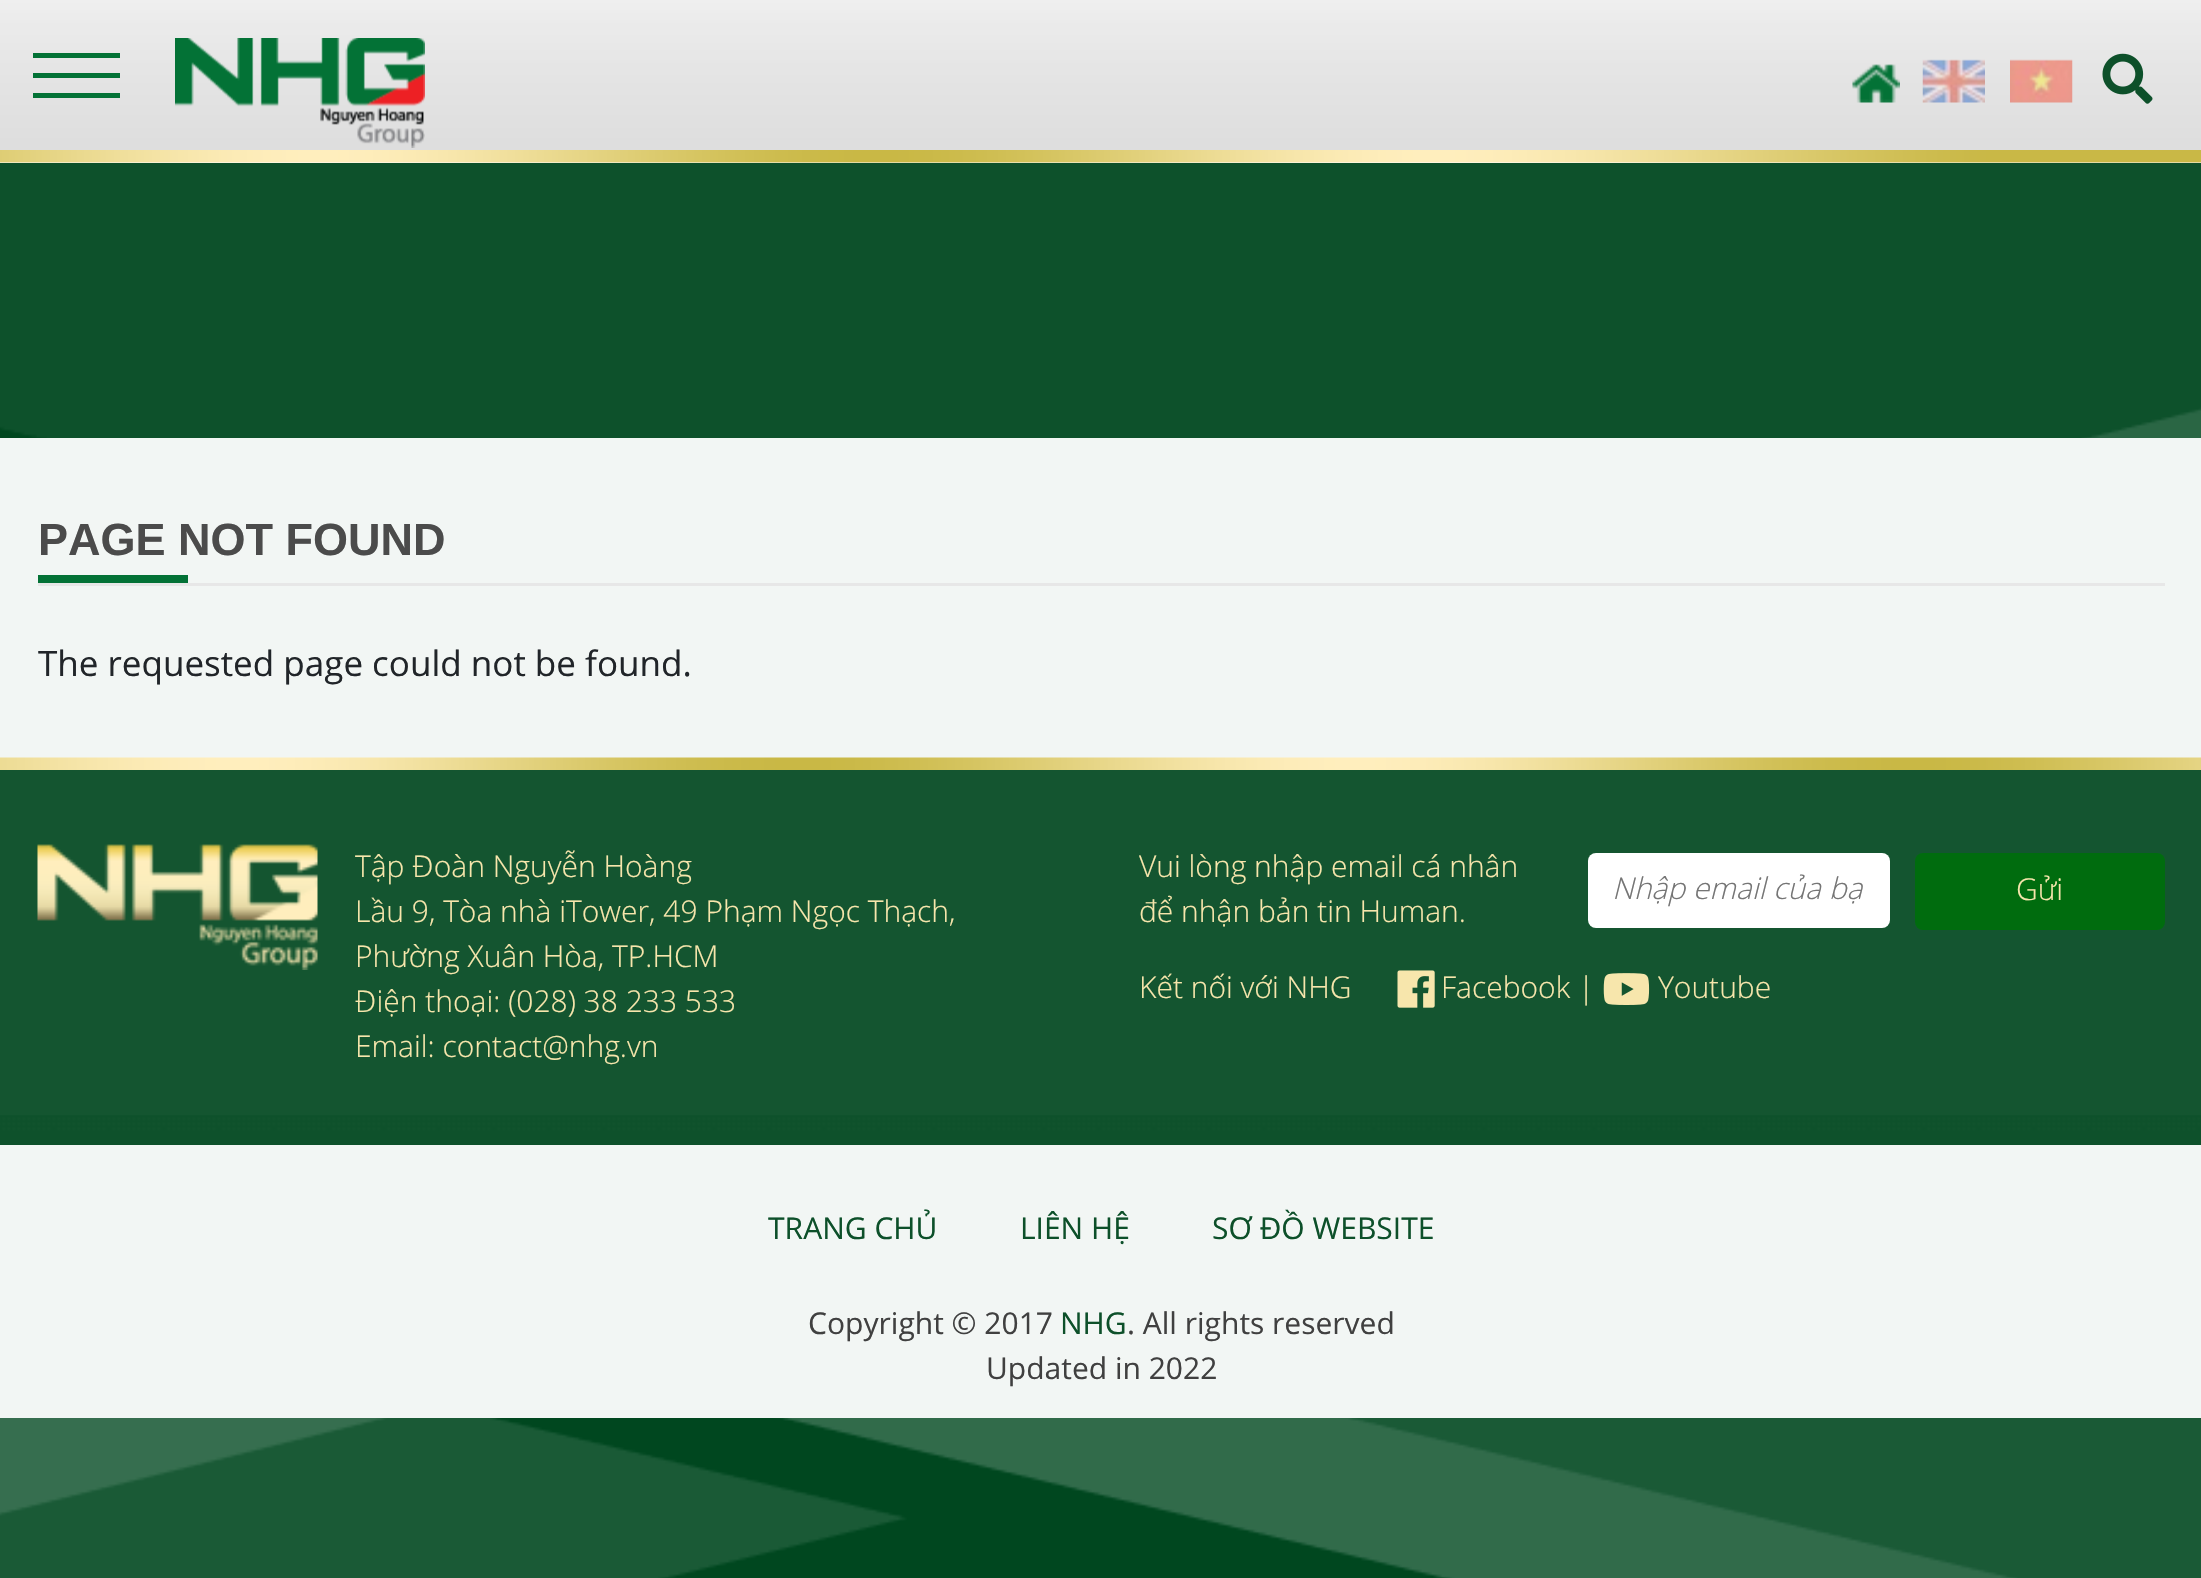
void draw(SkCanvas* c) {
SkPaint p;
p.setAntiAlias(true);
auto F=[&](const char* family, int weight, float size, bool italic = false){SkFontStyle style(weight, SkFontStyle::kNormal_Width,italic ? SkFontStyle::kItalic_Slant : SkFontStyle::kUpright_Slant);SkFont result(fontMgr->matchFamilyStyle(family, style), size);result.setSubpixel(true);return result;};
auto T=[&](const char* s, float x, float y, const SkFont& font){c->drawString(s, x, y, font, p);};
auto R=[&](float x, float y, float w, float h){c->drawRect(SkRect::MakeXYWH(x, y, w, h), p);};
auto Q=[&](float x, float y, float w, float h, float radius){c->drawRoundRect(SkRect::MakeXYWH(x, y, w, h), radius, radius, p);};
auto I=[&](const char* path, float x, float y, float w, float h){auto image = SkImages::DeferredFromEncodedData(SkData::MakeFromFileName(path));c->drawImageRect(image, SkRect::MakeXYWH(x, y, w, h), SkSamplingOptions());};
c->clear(0xff00471f);
I("1.png",0,163,2201,1415);
I("2.png",0,0,2201,150);
p.setColor(0xff037236);
R(33,73,87,5);
R(33,53,87,5);
R(33,93,87,5);
I("3.png",175,38,250,110);
I("4.png",1852,64,48,39);
I("5.png",1922,59,63,44);
I("6.png",2010,59,63,44);
I("7.png",2102,53,51,51);
p.setColor(0xffffffff);
R(0,162,2201,1);
I("8.png",0,150,2201,13);
p.setColor(0xfff2f6f4);
R(0,438,2201,320);
p.setColor(0xffe7e7e7);
R(38,583,2127,3);
auto f1 = F("Liberation Sans",700,45);
p.setColor(0xff4b4b4b);
T("PAGE NOT FOUND",38,555,f1);
p.setColor(0xff037236);
R(38,575,150,8);
auto f2 = F("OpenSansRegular",400,35);
p.setColor(0xff212529);
T("The requested page could not be found.",38,676,f2);
p.setColor(0xff145530);
R(0,770,2201,345);
I("9.png",0,1115,2201,30);
I("10.png",0,757,2201,13);
I("11.png",37,844,281,126);
auto f3 = F("Open Sans",300,30);
p.setColor(0xfff7e6ac);
T("Tập Đoàn Nguyễn Hoàng",355,877,f3);
T("Lầu 9, Tòa nhà iTower, 49 Phạm Ngọc Thạch,",355,922,f3);
T("Phường Xuân Hòa, TP.HCM",355,967,f3);
T("Điện thoại: (028) 38 233 533",355,1012,f3);
T("Email: contact@nhg.vn",355,1057,f3);
T("Vui lòng nhập email cá nhân",1139,877,f3);
T("để nhận bản tin Human.",1139,922,f3);
p.setColor(0xffffffff);
Q(1588,853,302,75,8);
auto f4 = F("Open Sans",300,30,true);
p.setColor(0xff757575);
T("Nhập email của bạ",1612,899,f4);
p.setColor(0xff006c0e);
Q(1915,853,250,77,8);
p.setColor(0xfff7e6ac);
T("Gửi",2016,900,f3);
T("Kết nối với NHG",1139,998,f3);
I("12.png",1397,970,38,38);
T("Facebook |",1441,998,f3);
I("13.png",1603,973,47,32);
T("Youtube",1658,998,f3);
p.setColor(0xfff2f6f4);
R(0,1145,2201,273);
auto f5 = F("OpenSansRegular",400,30);
p.setColor(0xff0d502a);
T("TRANG CHỦ",768,1239,f5);
T("LIÊN HỆ",1020,1239,f5);
T("SƠ ĐỒ WEBSITE",1212,1239,f5);
p.setColor(0xff404040);
T("Copyright © 2017",808,1334,f5);
p.setColor(0xff0d502a);
T("NHG",1060,1334,f5);
p.setColor(0xff404040);
T(". All rights reserved",1127,1334,f5);
T("Updated in 2022",986,1379,f5);
}
